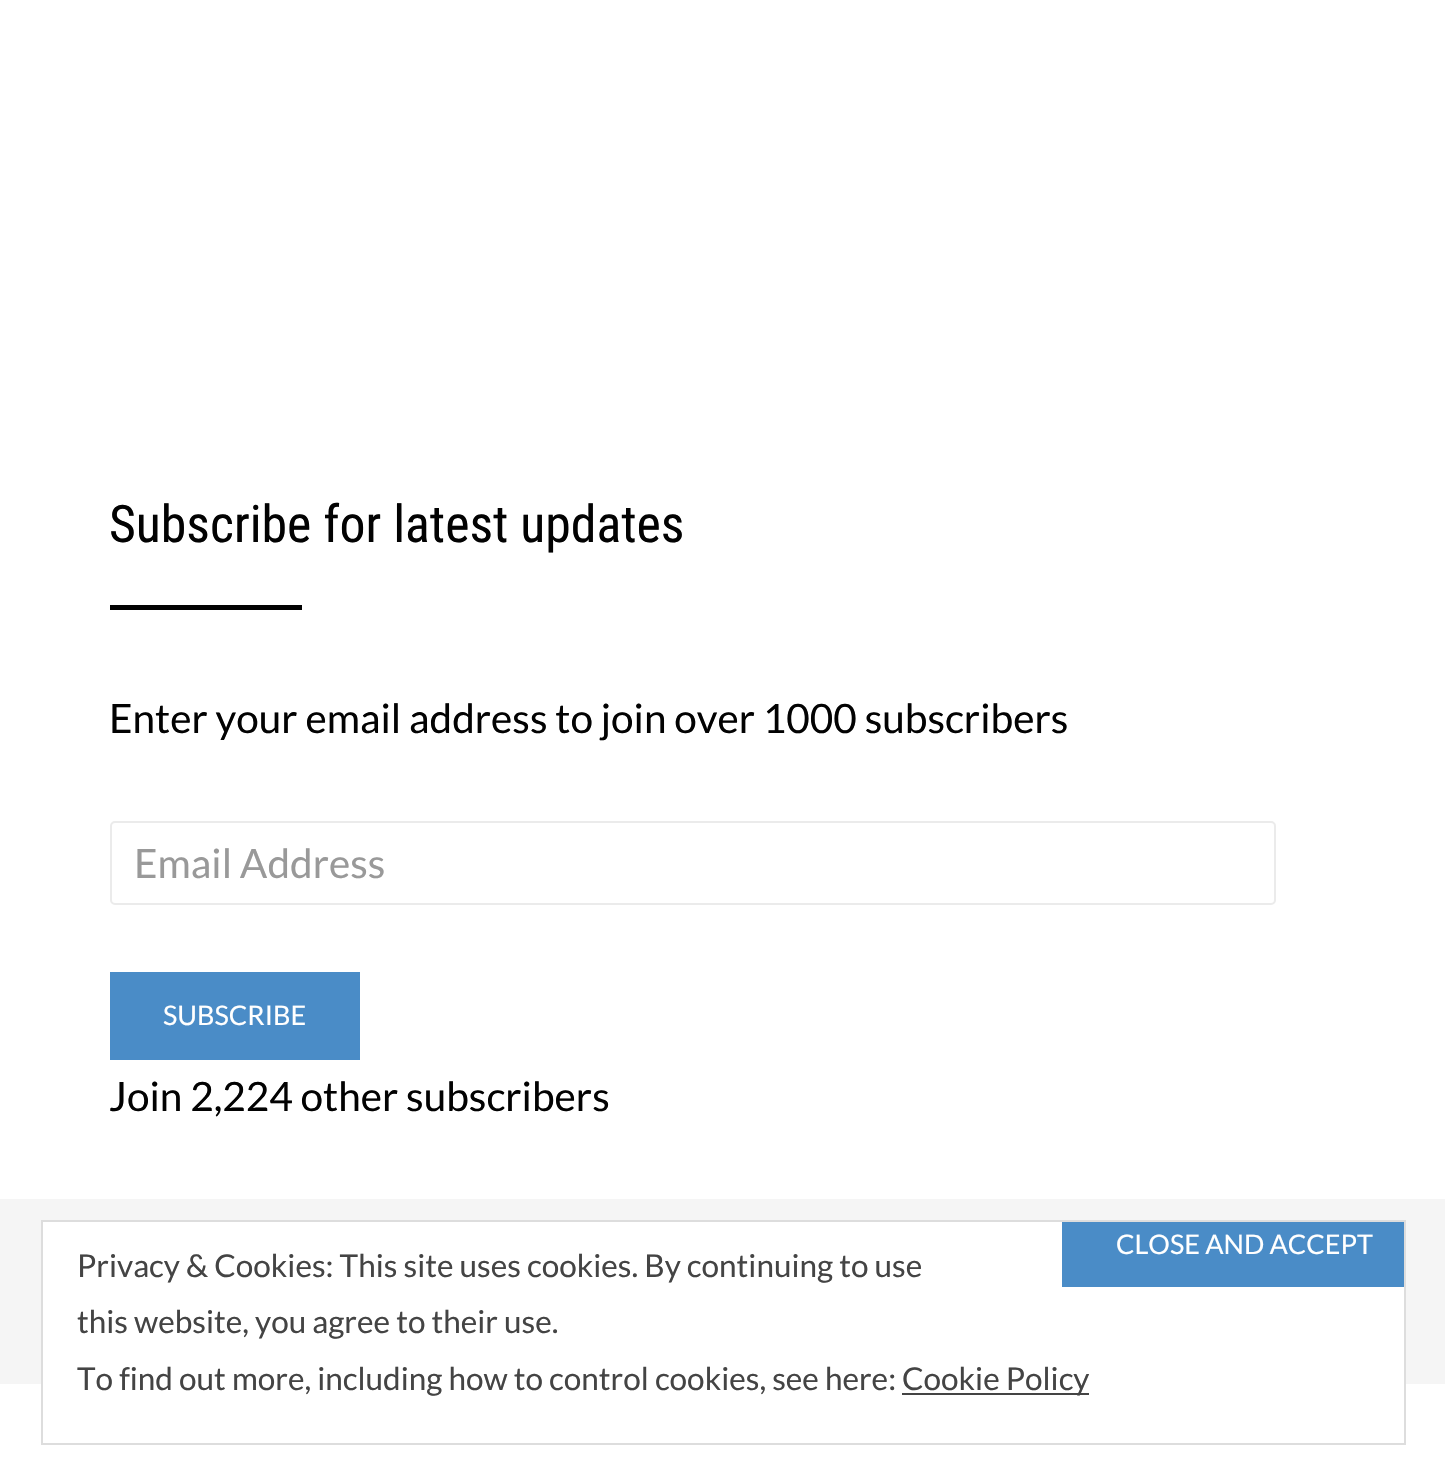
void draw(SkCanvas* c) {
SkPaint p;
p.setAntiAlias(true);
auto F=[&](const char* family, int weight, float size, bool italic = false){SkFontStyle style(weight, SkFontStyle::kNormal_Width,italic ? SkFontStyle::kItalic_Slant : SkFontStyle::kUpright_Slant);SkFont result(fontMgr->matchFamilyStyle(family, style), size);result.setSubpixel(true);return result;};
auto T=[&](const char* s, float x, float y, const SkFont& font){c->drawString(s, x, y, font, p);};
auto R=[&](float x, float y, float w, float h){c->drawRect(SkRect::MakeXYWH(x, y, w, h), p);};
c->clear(0xfff5f5f5);
p.setColor(0xffffffff);
R(0,0,1445,1199);
auto f1 = F("Roboto Condensed",400,51.75);
p.setColor(0xff020202);
T("Subscribe for latest updates",109,542,f1);
R(110,605,192,5);
auto f2 = F("Lato",400,40.5);
T("Enter your email address to join over 1000 subscribers",109,733,f2);
p.setStroke(true);
p.setStrokeWidth(2);
p.setColor(0xffebebeb);
c->drawRoundRect(SkRect::MakeXYWH(111,822,1164,82),4,4,p);
p.setStroke(false);
p.setColor(0xff999999);
T("Email Address",134,878,f2);
p.setColor(0xff4a8cc7);
R(110,972,250,88);
auto f3 = F("Lato",400,27);
p.setColor(0xffffffff);
T("SUBSCRIBE",163,1025,f3);
p.setColor(0xff020202);
T("Join 2,224 other subscribers",109,1111,f2);
p.setColor(0xffffffff);
R(0,1384,1445,100);
R(43,1222,1361,162);
p.setStroke(true);
p.setColor(0xffdddddd);
c->drawRect(SkRect::MakeXYWH(42,1221,1363,223),p);
p.setStroke(false);
p.setColor(0xff4a8cc7);
R(1062,1222,342,65);
p.setColor(0xffffffff);
T("CLOSE AND ACCEPT",1116,1254,f3);
auto f4 = F("Lato",400,31.5);
p.setColor(0xff444444);
T("Privacy & Cookies: This site uses cookies. By continuing to use",77,1277,f4);
T("this website, you agree to their use.",77,1333,f4);
T("To find out more, including how to control cookies, see here:",77,1390,f4);
R(902,1393,187,2);
T("Cookie Policy",902,1390,f4);
}
